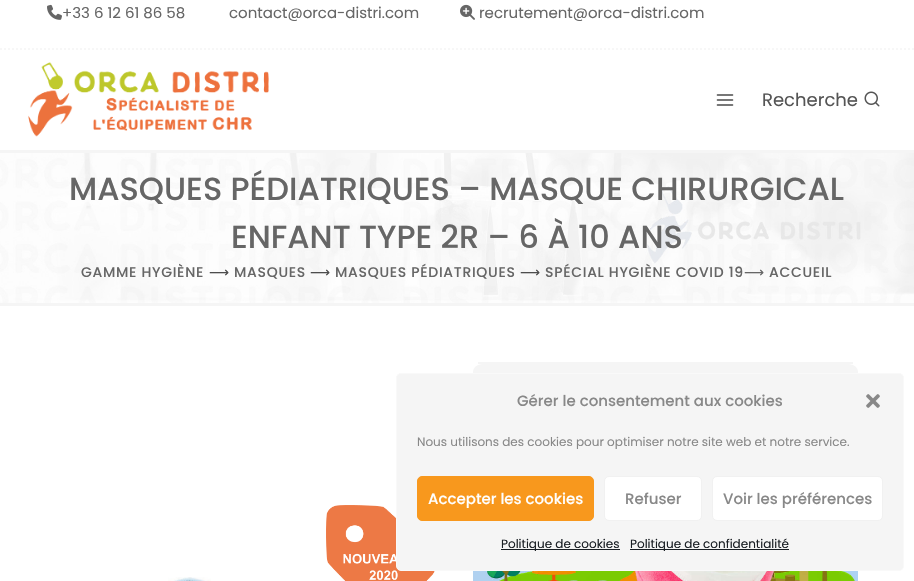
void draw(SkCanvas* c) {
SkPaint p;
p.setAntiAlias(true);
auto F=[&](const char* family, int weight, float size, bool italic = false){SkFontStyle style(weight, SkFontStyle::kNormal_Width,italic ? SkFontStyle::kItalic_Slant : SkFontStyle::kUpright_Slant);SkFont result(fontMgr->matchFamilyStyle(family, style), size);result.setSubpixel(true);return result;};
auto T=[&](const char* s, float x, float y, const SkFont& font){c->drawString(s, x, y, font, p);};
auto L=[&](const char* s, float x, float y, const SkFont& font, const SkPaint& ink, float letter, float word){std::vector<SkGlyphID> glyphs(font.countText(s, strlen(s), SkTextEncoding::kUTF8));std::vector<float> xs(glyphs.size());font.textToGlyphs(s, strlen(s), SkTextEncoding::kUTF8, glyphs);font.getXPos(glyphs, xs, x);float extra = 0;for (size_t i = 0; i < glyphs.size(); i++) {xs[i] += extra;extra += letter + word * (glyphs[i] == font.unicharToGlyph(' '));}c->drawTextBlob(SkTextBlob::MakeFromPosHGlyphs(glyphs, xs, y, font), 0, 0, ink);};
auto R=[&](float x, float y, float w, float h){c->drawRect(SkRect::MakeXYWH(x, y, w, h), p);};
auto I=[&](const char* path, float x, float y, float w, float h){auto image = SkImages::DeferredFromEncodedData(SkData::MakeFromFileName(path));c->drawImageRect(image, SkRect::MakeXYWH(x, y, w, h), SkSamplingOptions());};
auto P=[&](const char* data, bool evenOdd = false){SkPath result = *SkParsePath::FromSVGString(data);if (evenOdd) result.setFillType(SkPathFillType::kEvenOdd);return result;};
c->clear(0xffffffff);
p.setStroke(true);
p.setStrokeWidth(2);
p.setColor(0xfff7f7f7);
p.setPathEffect(SkDashPathEffect::Make({{2,2}}, 0));
c->drawPath(P("M0 49h914"),p);
p.setPathEffect(nullptr);
I("1.png",47,4,15,16);
auto f1 = F("Poppins",400,15);
p.setStroke(false);
p.setColor(0xff666666);
T("+33 6 12 61 86 58",62,18,f1);
T("contact@orca-distri.com",229,18,f1);
I("2.png",460,4,15,16);
T("recrutement@orca-distri.com",479,18,f1);
I("3.png",28,62,241,75);
I("4.png",716,94,18,12);
auto f2 = F("Poppins",400,18);
p.setColor(0xff555555);
T("Recherche",762,106,f2);
I("5.png",864,91,16,16);
I("6.png",0,153,914,150);
p.setColor(0xfff5f5f5);
R(0,150,914,3);
R(0,303,914,3);
auto f3 = F("Poppins",500,32);
p.setColor(0xff666666);
T("MASQUES PÉDIATRIQUES – MASQUE CHIRURGICAL",69,200,f3);
T("ENFANT TYPE 2R – 6 À 10 ANS",231,248,f3);
auto f4 = F("Poppins",500,14);
L("GAMME HYGIÈNE",81,277,f4,p,.7,0);
auto f5 = F("DejaVu Sans",400,14);
p.setColor(0xff4d4d4d);
L("⟶",209,277,f5,p,.7,0);
p.setColor(0xff666666);
L("MASQUES",234,277,f4,p,.7,0);
p.setColor(0xff4d4d4d);
L("⟶",310,277,f5,p,.7,0);
p.setColor(0xff666666);
L("MASQUES PÉDIATRIQUES",335,277,f4,p,.7,0);
p.setColor(0xff4d4d4d);
L("⟶",520,277,f5,p,.7,0);
p.setColor(0xff666666);
L("SPÉCIAL HYGIÈNE COVID 19",545,277,f4,p,.7,0);
L("⟶",744,277,f5,p,.7,0);
L("ACCUEIL",769,277,f4,p,.7,0);
I("7.png",168,577,43,4);
I("8.png",326,505,109,76);
p.setColor(0xfff5f5f5);
c->drawPath(P("M483 364h365c6 0 10 4 10 8v34c0 6-4 10-10 10h-365c-6 0-10-4-10-10v-34c0-4 4-8 10-8z"),p);
R(478,362,375,2);
I("9.png",473,571,385,10);
c->drawRoundRect(SkRect::MakeXYWH(396.5,373.5,507,197),4.5,4.5,p);
p.setStroke(true);
p.setStrokeWidth(1);
p.setColor(0xfff9f9f9);
c->drawRoundRect(SkRect::MakeXYWH(396.5,373.5,507,197),4.5,4.5,p);
auto f6 = F("Poppins",500,15);
p.setStroke(false);
p.setColor(0xff888888);
T("Gérer le consentement aux cookies",517,406,f6);
I("10.png",866,394,14,14);
auto f7 = F("Poppins",400,12);
T("Nous utilisons des cookies pour optimiser notre site web et notre service.",417,446,f7);
p.setColor(0xfff8981d);
c->drawRoundRect(SkRect::MakeXYWH(417.5,476.5,176,44),4.5,4.5,p);
p.setStroke(true);
c->drawRoundRect(SkRect::MakeXYWH(417.5,476.5,176,44),4.5,4.5,p);
p.setStroke(false);
p.setColor(0xffffffff);
T("Accepter les cookies",428,504,f6);
c->drawRoundRect(SkRect::MakeXYWH(604.5,476.5,97,44),4.5,4.5,p);
p.setStroke(true);
p.setColor(0xfff1f1f1);
c->drawRoundRect(SkRect::MakeXYWH(604.5,476.5,97,44),4.5,4.5,p);
p.setStroke(false);
p.setColor(0xff888888);
T("Refuser",625,504,f6);
p.setColor(0xffffffff);
c->drawRoundRect(SkRect::MakeXYWH(712.5,476.5,170,44),4.5,4.5,p);
p.setStroke(true);
p.setColor(0xfff1f1f1);
c->drawRoundRect(SkRect::MakeXYWH(712.5,476.5,170,44),4.5,4.5,p);
p.setStroke(false);
p.setColor(0xff888888);
T("Voir les préférences",723,504,f6);
p.setColor(0xff191e23);
R(501,549,119,1);
T("Politique de cookies",501,548,f7);
R(630,549,159,1);
T("Politique de confidentialité",630,548,f7);
}
